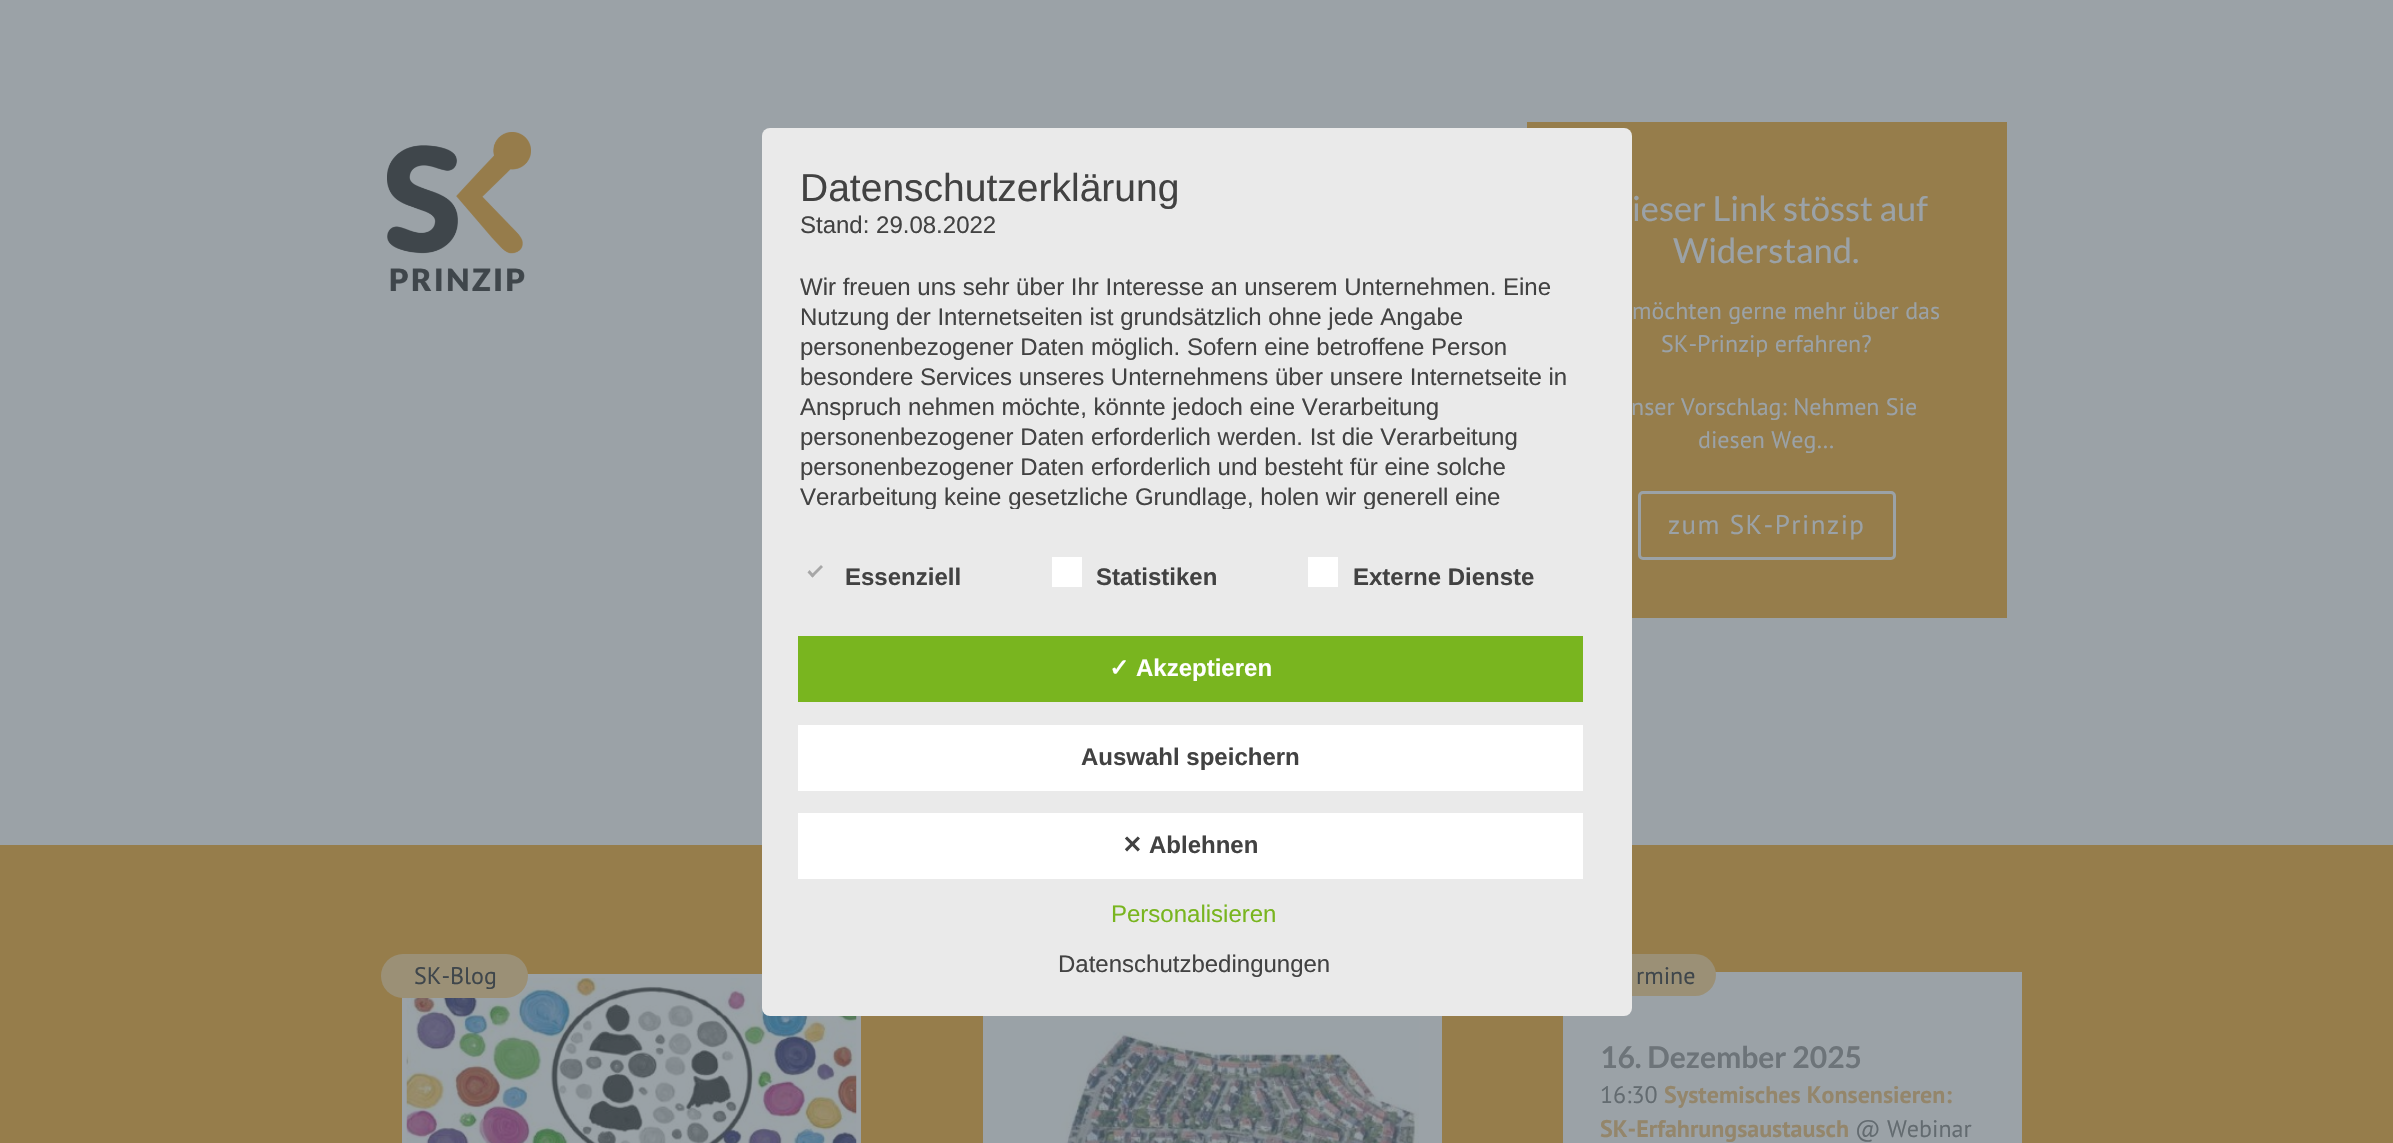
void draw(SkCanvas* c) {
SkPaint p;
p.setAntiAlias(true);
auto F=[&](const char* family, int weight, float size, bool italic = false){SkFontStyle style(weight, SkFontStyle::kNormal_Width,italic ? SkFontStyle::kItalic_Slant : SkFontStyle::kUpright_Slant);SkFont result(fontMgr->matchFamilyStyle(family, style), size);result.setSubpixel(true);return result;};
auto T=[&](const char* s, float x, float y, const SkFont& font){c->drawString(s, x, y, font, p);};
auto L=[&](const char* s, float x, float y, const SkFont& font, const SkPaint& ink, float letter, float word){std::vector<SkGlyphID> glyphs(font.countText(s, strlen(s), SkTextEncoding::kUTF8));std::vector<float> xs(glyphs.size());font.textToGlyphs(s, strlen(s), SkTextEncoding::kUTF8, glyphs);font.getXPos(glyphs, xs, x);float extra = 0;for (size_t i = 0; i < glyphs.size(); i++) {xs[i] += extra;extra += letter + word * (glyphs[i] == font.unicharToGlyph(' '));}c->drawTextBlob(SkTextBlob::MakeFromPosHGlyphs(glyphs, xs, y, font), 0, 0, ink);};
auto R=[&](float x, float y, float w, float h){c->drawRect(SkRect::MakeXYWH(x, y, w, h), p);};
auto Q=[&](float x, float y, float w, float h, float radius){c->drawRoundRect(SkRect::MakeXYWH(x, y, w, h), radius, radius, p);};
auto I=[&](const char* path, float x, float y, float w, float h){auto image = SkImages::DeferredFromEncodedData(SkData::MakeFromFileName(path));c->drawImageRect(image, SkRect::MakeXYWH(x, y, w, h), SkSamplingOptions());};
auto P=[&](const char* data, bool evenOdd = false){SkPath result = *SkParsePath::FromSVGString(data);if (evenOdd) result.setFillType(SkPathFillType::kEvenOdd);return result;};
c->clear(0xff9ba2a7);
p.setColor(0xff967d4b);
R(1527,122,480,496);
R(0,845,2393,298);
p.setColor(0xff9ba2a7);
R(402,974,459,169);
I("2.png",406,978,451,165);
R(1563,972,459,171);
p.setColor(0xff9b9076);
Q(1542,954,174,42,21);
p.setColor(0xffeaeaea);
Q(762,128,870,888,8);
auto f1 = F("Liberation Sans",400,39);
p.setColor(0xff424242);
T("Datenschutzerklärung",800,201,f1);
auto f2 = F("Liberation Sans",400,24);
T("Stand: 29.08.2022",800,233,f2);
T("Wir freuen uns sehr über Ihr Interesse an unserem Unternehmen. Eine",800,295,f2);
T("Nutzung der Internetseiten ist grundsätzlich ohne jede Angabe",800,325,f2);
T("personenbezogener Daten möglich. Sofern eine betroffene Person",800,355,f2);
T("besondere Services unseres Unternehmens über unsere Internetseite in",800,385,f2);
T("Anspruch nehmen möchte, könnte jedoch eine Verarbeitung",800,415,f2);
T("personenbezogener Daten erforderlich werden. Ist die Verarbeitung",800,445,f2);
T("personenbezogener Daten erforderlich und besteht für eine solche",800,475,f2);
c->save();
c->clipRect(SkRect::MakeXYWH(800,165,810,344));
T("Verarbeitung keine gesetzliche Grundlage, holen wir generell eine",800,505,f2);
c->restore();
p.setColor(0xffa7a7a7);
c->drawPath(P("M821 565l2 2l-10.5 10.5l-2-2z"),p);
c->drawPath(P("M809.5 570l5 5.5l-2 2l-5-5z"),p);
auto f3 = F("Liberation Sans",700,24);
p.setColor(0xff424242);
T("Essenziell",845,585,f3);
p.setColor(0xffffffff);
R(1052,557,30,30);
p.setColor(0xff424242);
T("Statistiken",1096,585,f3);
p.setColor(0xffffffff);
R(1308,557,30,30);
p.setColor(0xff424242);
T("Externe Dienste",1353,585,f3);
p.setColor(0xff79b51f);
R(798,636,785,66);
auto f4 = F("DejaVu Sans",700,24);
p.setColor(0xffffffff);
T("✓",1109,676,f4);
T("Akzeptieren",1136,676,f3);
R(798,725,785,66);
p.setColor(0xff424242);
T("Auswahl speichern",1081,765,f3);
p.setColor(0xffffffff);
R(798,813,785,66);
p.setColor(0xff424242);
T("✕",1122,853,f4);
T("Ablehnen",1149,853,f3);
p.setColor(0xff79b51f);
T("Personalisieren",1111,922,f2);
p.setColor(0xff424242);
T("Datenschutzbedingungen",1058,972,f2);
I("1.png",387,132,144,159);
auto f5 = F("Lato",400,34.5);
p.setColor(0xff9ba2a7);
T("ieser Link stösst auf",1632,221,f5);
T("Widerstand.",1673,263,f5);
auto f6 = F("PT Sans",400,24);
T("möchten gerne mehr über das",1632,319,f6);
T("SK-Prinzip erfahren?",1661,352,f6);
T("nser Vorschlag: Nehmen Sie",1631,415,f6);
T("diesen Weg…",1698,448,f6);
p.setStroke(true);
p.setStrokeWidth(3);
c->drawRoundRect(SkRect::MakeXYWH(1639.5,492.5,255,66),3.5,3.5,p);
auto f7 = F("PT Sans",400,27);
p.setStroke(false);
L("zum SK-Prinzip",1668,534,f7,p,1.5,0);
p.setColor(0xff9b9076);
Q(381,954,147,44,22);
p.setColor(0xff3f464b);
T("SK-Blog",414,984,f6);
p.setColor(0xff9ba2a7);
R(983,1016,459,127);
I("3.png",987,1016,432,127);
p.setColor(0xff3f464b);
T("rmine",1636,984,f6);
auto f8 = F("Lato",700,30);
p.setColor(0xff6d7479);
T("16. Dezember 2025",1600,1068,f8);
p.setColor(0xff636b70);
T("16:30",1600,1103,f6);
auto f9 = F("PT Sans",700,24);
p.setColor(0xff94866b);
T("Systemisches Konsensieren:",1664,1103,f9);
T("SK-Erfahrungsaustausch",1600,1137,f9);
p.setColor(0xff636b70);
T("@ Webinar",1855,1137,f6);
}
